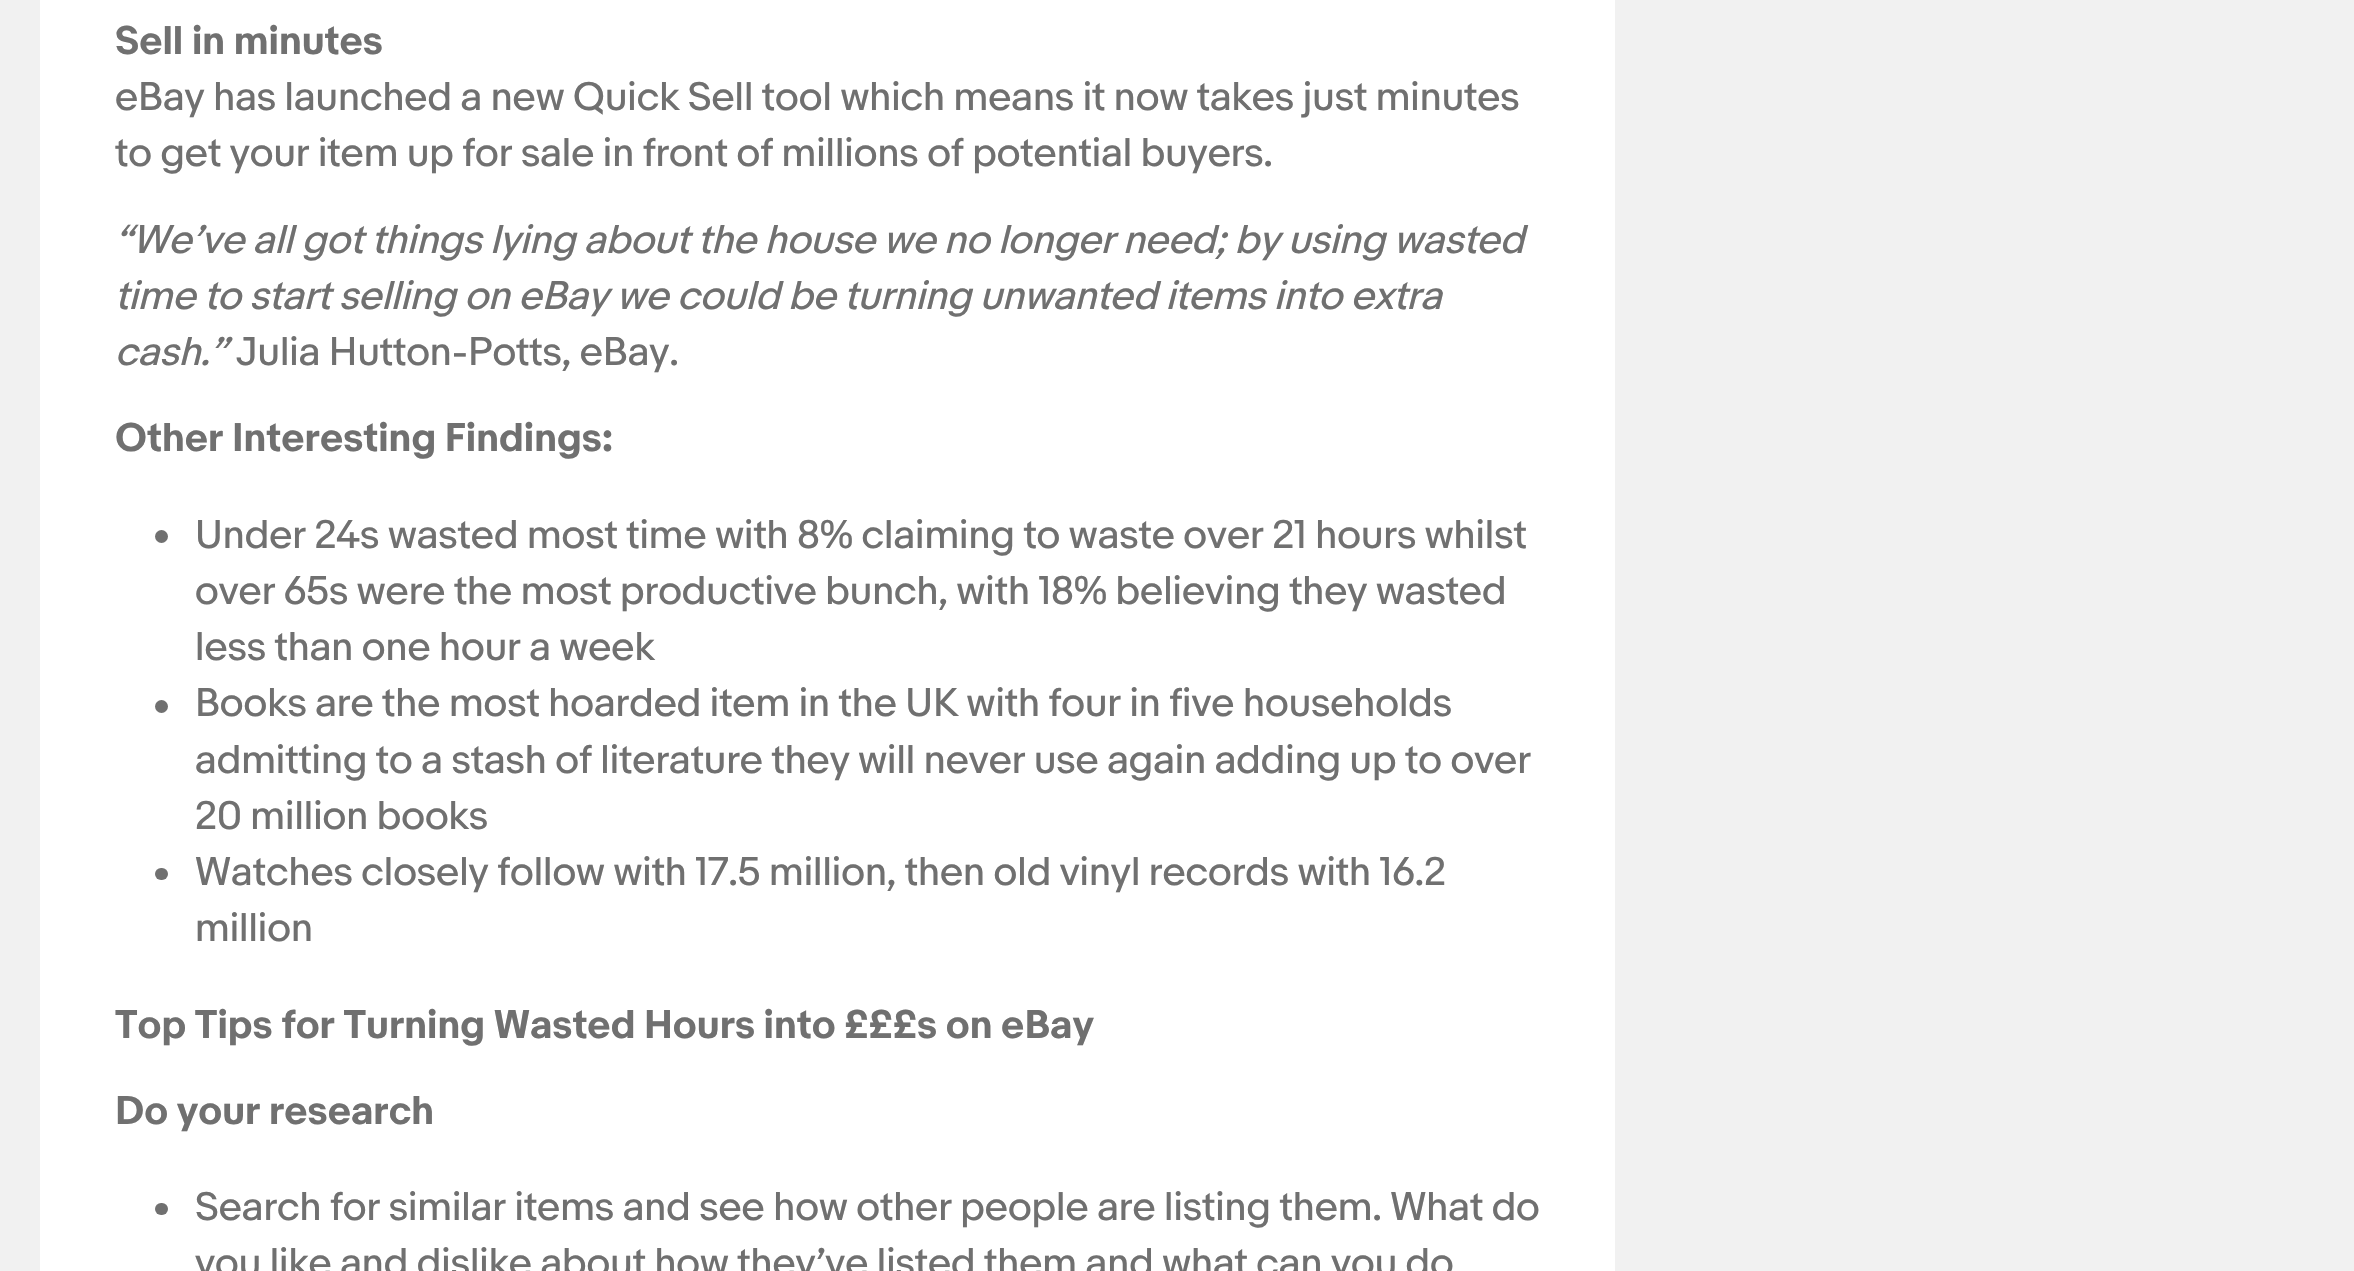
void draw(SkCanvas* c) {
SkPaint p;
p.setAntiAlias(true);
auto F=[&](const char* family, int weight, float size, bool italic = false){SkFontStyle style(weight, SkFontStyle::kNormal_Width,italic ? SkFontStyle::kItalic_Slant : SkFontStyle::kUpright_Slant);SkFont result(fontMgr->matchFamilyStyle(family, style), size);result.setSubpixel(true);return result;};
auto T=[&](const char* s, float x, float y, const SkFont& font){c->drawString(s, x, y, font, p);};
auto R=[&](float x, float y, float w, float h){c->drawRect(SkRect::MakeXYWH(x, y, w, h), p);};
auto Q=[&](float x, float y, float w, float h, float radius){c->drawRoundRect(SkRect::MakeXYWH(x, y, w, h), radius, radius, p);};
c->clear(0xfff1f1f1);
p.setColor(0xffffffff);
R(40,0,1575,1271);
auto f1 = F("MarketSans",700,37.5);
p.setColor(0xff707070);
T("Sell in minutes",115,54,f1);
auto f2 = F("MarketSans",400,37.5);
T("eBay has launched a new Quick Sell tool which means it now takes just minutes",115,110,f2);
T("to get your item up for sale in front of millions of potential buyers.",115,166,f2);
auto f3 = F("MarketSans",400,37.5,true);
T("“We’ve all got things lying about the house we no longer need; by using wasted",115,253,f3);
T("time to start selling on eBay we could be turning unwanted items into extra",115,309,f3);
T("cash.”",115,365,f3);
T("Julia Hutton-Potts, eBay.",236,365,f2);
T("Other Interesting Findings:",115,451,f1);
c->drawCircle(161.5,536.5,6.5,p);
T("Under 24s wasted most time with 8% claiming to waste over 21 hours whilst",195,548,f2);
T("over 65s were the most productive bunch, with 18% believing they wasted",195,604,f2);
T("less than one hour a week",195,660,f2);
c->drawCircle(161.5,706.5,6.5,p);
T("Books are the most hoarded item in the UK with four in five households",195,716,f2);
T("admitting to a stash of literature they will never use again adding up to over",195,773,f2);
T("20 million books",195,829,f2);
Q(155,868,13,12,6);
T("Watches closely follow with 17.5 million, then old vinyl records with 16.2",195,885,f2);
T("million",195,941,f2);
T("Top Tips for Turning Wasted Hours into £££s on eBay",115,1038,f1);
T("Do your research",115,1124,f1);
Q(155,1203,13,12,6);
T("Search for similar items and see how other people are listing them. What do",195,1220,f2);
T("you like and dislike about how they’ve listed them and what can you do",195,1276,f2);
}
